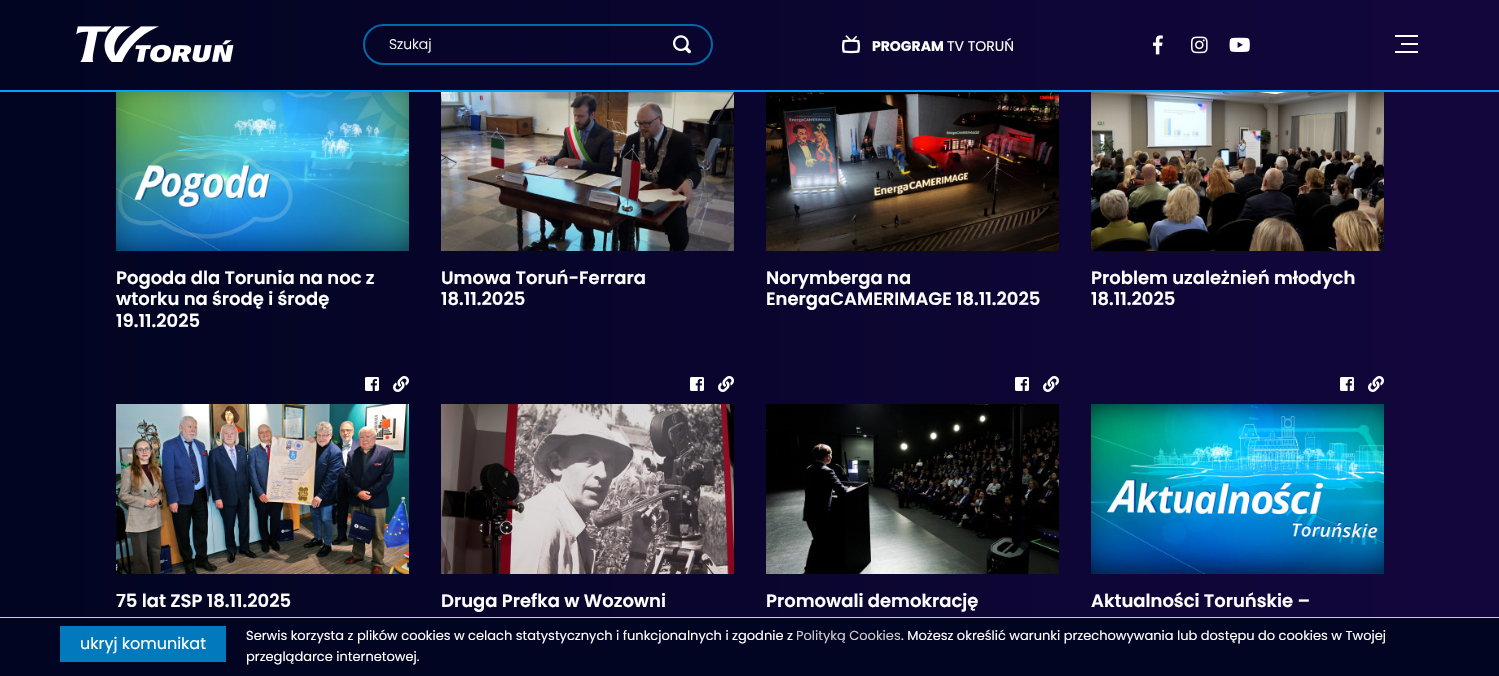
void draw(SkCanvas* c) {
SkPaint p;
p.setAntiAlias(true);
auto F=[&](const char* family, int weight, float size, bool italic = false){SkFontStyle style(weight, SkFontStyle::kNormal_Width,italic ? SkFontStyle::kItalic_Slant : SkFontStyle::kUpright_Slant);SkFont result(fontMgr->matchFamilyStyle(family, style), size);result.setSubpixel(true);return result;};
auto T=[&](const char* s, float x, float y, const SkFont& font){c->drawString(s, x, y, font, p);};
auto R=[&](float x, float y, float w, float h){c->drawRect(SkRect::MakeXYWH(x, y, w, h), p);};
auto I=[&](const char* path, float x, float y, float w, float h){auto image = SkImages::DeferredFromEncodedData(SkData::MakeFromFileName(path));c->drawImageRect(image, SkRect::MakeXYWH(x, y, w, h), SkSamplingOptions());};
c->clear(0xffffffff);
{
const SkColor colors[] = {0xff020522,0xff13063d};
const float stops[] = {.04,1};
const SkPoint ends[] = {{0,-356}, {1499,-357}};
p.setShader(SkGradientShader::MakeLinear(ends, colors, stops, 2, SkTileMode::kClamp));
p.setAlpha(255);
}
R(0,92,1499,525);
{
const SkColor colors[] = {0xff020522,0xff13063d};
const float stops[] = {.04,1};
const SkPoint ends[] = {{0,45}, {1499,45}};
p.setShader(SkGradientShader::MakeLinear(ends, colors, stops, 2, SkTileMode::kClamp));
p.setAlpha(255);
}
R(0,0,1499,90);
p.setShader(nullptr);
p.setColor(0xff00a2ff);
R(0,90,1499,2);
I("1.png",76,26,158,37);
p.setStroke(true);
p.setStrokeWidth(2);
p.setColor(0xff0169a7);
c->drawRoundRect(SkRect::MakeXYWH(364,25,348,39),19.5,19.5,p);
auto f1 = F("Poppins",300,14);
p.setStroke(false);
p.setColor(0xffffffff);
T("Szukaj",389,49,f1);
I("2.png",673,35,18,19);
I("3.png",842,35,18,19);
auto f2 = F("Poppins",700,14);
T("PROGRAM",872,51,f2);
auto f3 = F("Poppins",400,14);
T("TV TORUŃ",947,51,f3);
I("4.png",1153,35,10,20);
I("5.png",1191,36,17,18);
I("6.png",1229,37,21,15);
R(1395,35,23,2);
R(1401,43,17,2);
R(1395,51,23,2);
I("7.png",116,92,293,159);
auto f4 = F("Poppins",600,18);
T("Pogoda dla Torunia na noc z",116,284,f4);
T("wtorku na środę i środę",116,305,f4);
T("19.11.2025",116,327,f4);
I("8.png",441,92,293,159);
T("Umowa Toruń-Ferrara",441,284,f4);
T("18.11.2025",441,305,f4);
I("9.png",766,92,293,159);
T("Norymberga na",766,284,f4);
T("EnergaCAMERIMAGE 18.11.2025",766,305,f4);
I("10.png",1091,92,293,159);
T("Problem uzależnień młodych",1091,284,f4);
T("18.11.2025",1091,305,f4);
I("11.png",365,377,14,14);
I("12.png",393,376,16,16);
I("13.png",116,404,293,170);
T("75 lat ZSP 18.11.2025",116,607,f4);
I("14.png",690,377,14,14);
I("15.png",718,376,16,16);
I("16.png",441,404,293,170);
T("Druga Prefka w Wozowni",441,607,f4);
I("17.png",1015,377,14,14);
I("18.png",1043,376,16,16);
I("19.png",766,404,293,170);
T("Promowali demokrację",766,607,f4);
I("20.png",1340,377,14,14);
I("21.png",1368,376,16,16);
I("22.png",1091,404,293,170);
T("Aktualności Toruńskie –",1091,607,f4);
p.setColor(0xff020522);
R(0,618,1499,58);
p.setColor(0xffcccccc);
R(0,617,1499,1);
p.setColor(0xff0279bd);
R(60,626,166,36);
auto f5 = F("Poppins",400,16);
p.setColor(0xffffffff);
T("ukryj komunikat",80,649,f5);
auto f6 = F("Poppins",400,13);
T("Serwis korzysta z plików cookies w celach statystycznych i funkcjonalnych i zgodnie z",246,640,f6);
p.setColor(0xffcccccc);
T("Polityką Cookies",796,640,f6);
p.setColor(0xffffffff);
T(". Możesz określić warunki przechowywania lub dostępu do cookies w Twojej",901,640,f6);
T("przeglądarce internetowej.",246,661,f6);
}
